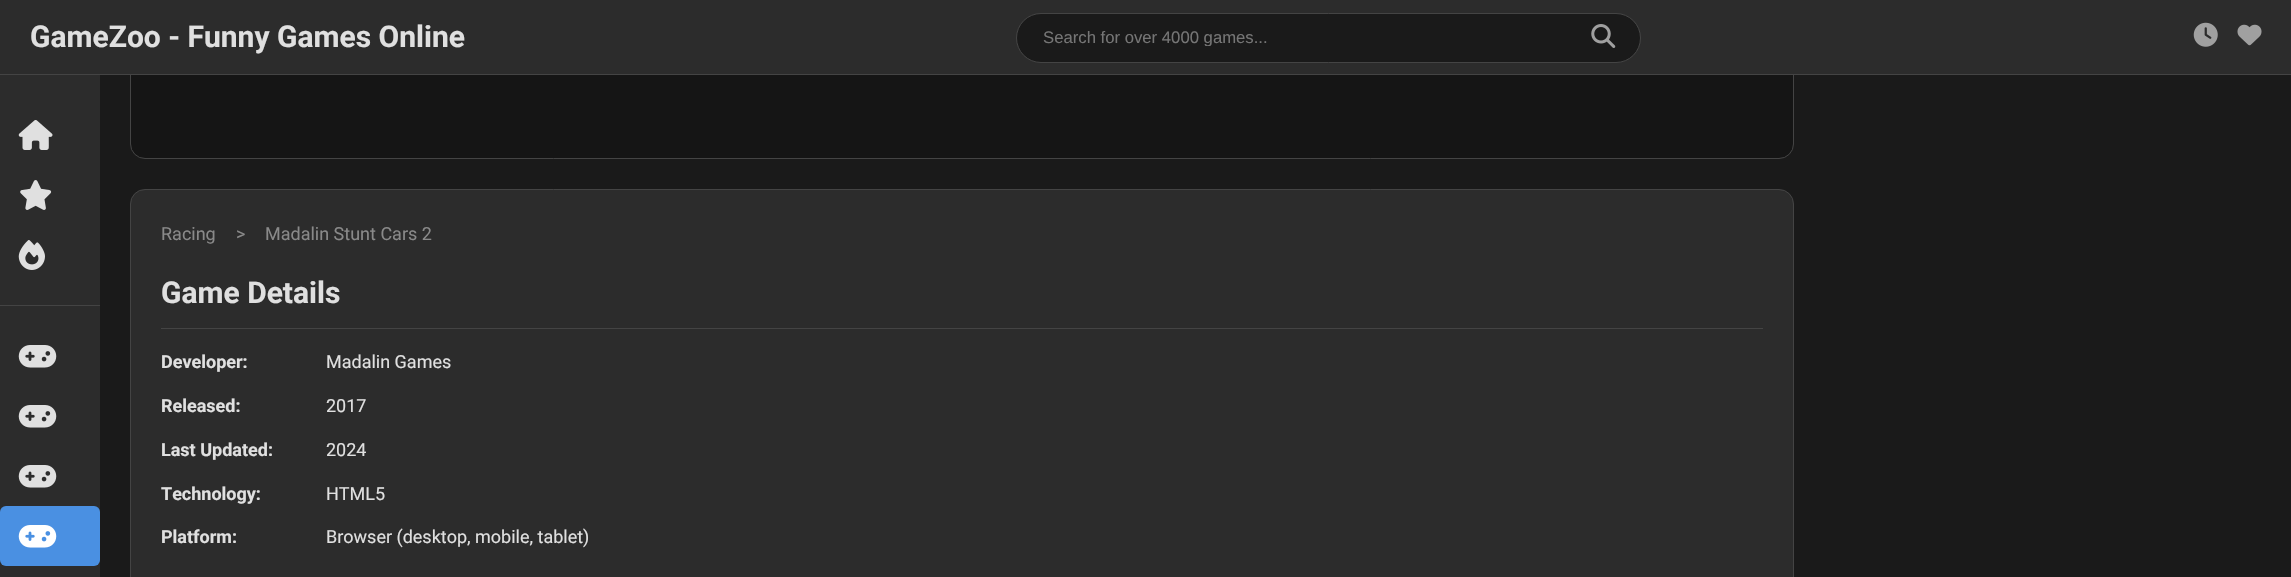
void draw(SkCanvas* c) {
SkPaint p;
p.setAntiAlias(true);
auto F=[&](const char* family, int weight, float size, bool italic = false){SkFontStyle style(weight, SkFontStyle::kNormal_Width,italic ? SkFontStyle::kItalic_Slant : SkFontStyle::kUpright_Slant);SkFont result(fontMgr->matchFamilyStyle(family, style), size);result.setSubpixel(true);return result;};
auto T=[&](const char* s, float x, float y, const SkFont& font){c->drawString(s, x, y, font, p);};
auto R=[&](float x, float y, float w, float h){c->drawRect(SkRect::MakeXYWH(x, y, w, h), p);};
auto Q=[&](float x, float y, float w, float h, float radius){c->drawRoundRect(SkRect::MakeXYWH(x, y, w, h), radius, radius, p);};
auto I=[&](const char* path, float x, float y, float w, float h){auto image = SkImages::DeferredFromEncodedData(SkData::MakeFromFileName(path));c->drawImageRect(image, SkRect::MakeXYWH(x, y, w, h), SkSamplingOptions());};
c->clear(0xff1a1a1a);
p.setColor(0xff151515);
c->drawRoundRect(SkRect::MakeXYWH(130.5,46.5,1663,112),14.5,14.5,p);
p.setStroke(true);
p.setStrokeWidth(1);
p.setColor(0xff444444);
c->drawRoundRect(SkRect::MakeXYWH(130.5,46.5,1663,112),14.5,14.5,p);
p.setStroke(false);
p.setColor(0xff2c2c2c);
R(0,0,2291,74);
p.setColor(0xff444444);
R(0,74,2291,1);
auto f1 = F("Roboto",700,30);
p.setColor(0xffe0e0e0);
T("GameZoo - Funny Games Online",30,47,f1);
p.setColor(0xff1a1a1a);
c->drawRoundRect(SkRect::MakeXYWH(1016.5,13.5,624,49),24.5,24.5,p);
p.setStroke(true);
p.setColor(0xff444444);
c->drawRoundRect(SkRect::MakeXYWH(1016.5,13.5,624,49),24.5,24.5,p);
c->save();
c->clipRect(SkRect::MakeXYWH(1043,28,541,18));
auto f2 = F("Liberation Sans",400,16.7);
p.setStroke(false);
p.setColor(0xff757575);
T("Search for over 4000 games...",1043,43,f2);
c->restore();
I("1.png",1591,24,25,24);
I("2.png",2193,22,25,25);
I("3.png",2237,24,25,22);
p.setColor(0xff2c2c2c);
R(0,75,100,502);
I("4.png",18,120,35,30);
I("5.png",20,180,32,30);
I("6.png",18,240,27,30);
p.setColor(0xff444444);
R(0,305,100,1);
I("7.png",18,345,39,23);
I("7.png",18,405,39,23);
I("7.png",18,465,39,23);
p.setColor(0xff4a90e2);
Q(0,506,100,60,6);
I("8.png",18,525,39,23);
p.setColor(0xff2c2c2c);
c->drawRoundRect(SkRect::MakeXYWH(130.5,189.5,1663,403),14.5,14.5,p);
p.setStroke(true);
p.setColor(0xff444444);
c->drawRoundRect(SkRect::MakeXYWH(130.5,189.5,1663,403),14.5,14.5,p);
auto f3 = F("Roboto",400,18);
p.setStroke(false);
p.setColor(0xff898989);
T("Racing",161,240,f3);
T(">",236,240,f3);
T("Madalin Stunt Cars 2",265,240,f3);
p.setColor(0xff444444);
R(161,328,1602,1);
p.setColor(0xffe0e0e0);
T("Game Details",161,303,f1);
auto f4 = F("Roboto",700,18);
T("Developer:",161,368,f4);
T("Madalin Games",326,368,f3);
T("Released:",161,412,f4);
T("2017",326,412,f3);
T("Last Updated:",161,456,f4);
T("2024",326,456,f3);
T("Technology:",161,500,f4);
T("HTML5",326,500,f3);
T("Platform:",161,543,f4);
T("Browser (desktop, mobile, tablet)",326,543,f3);
}
